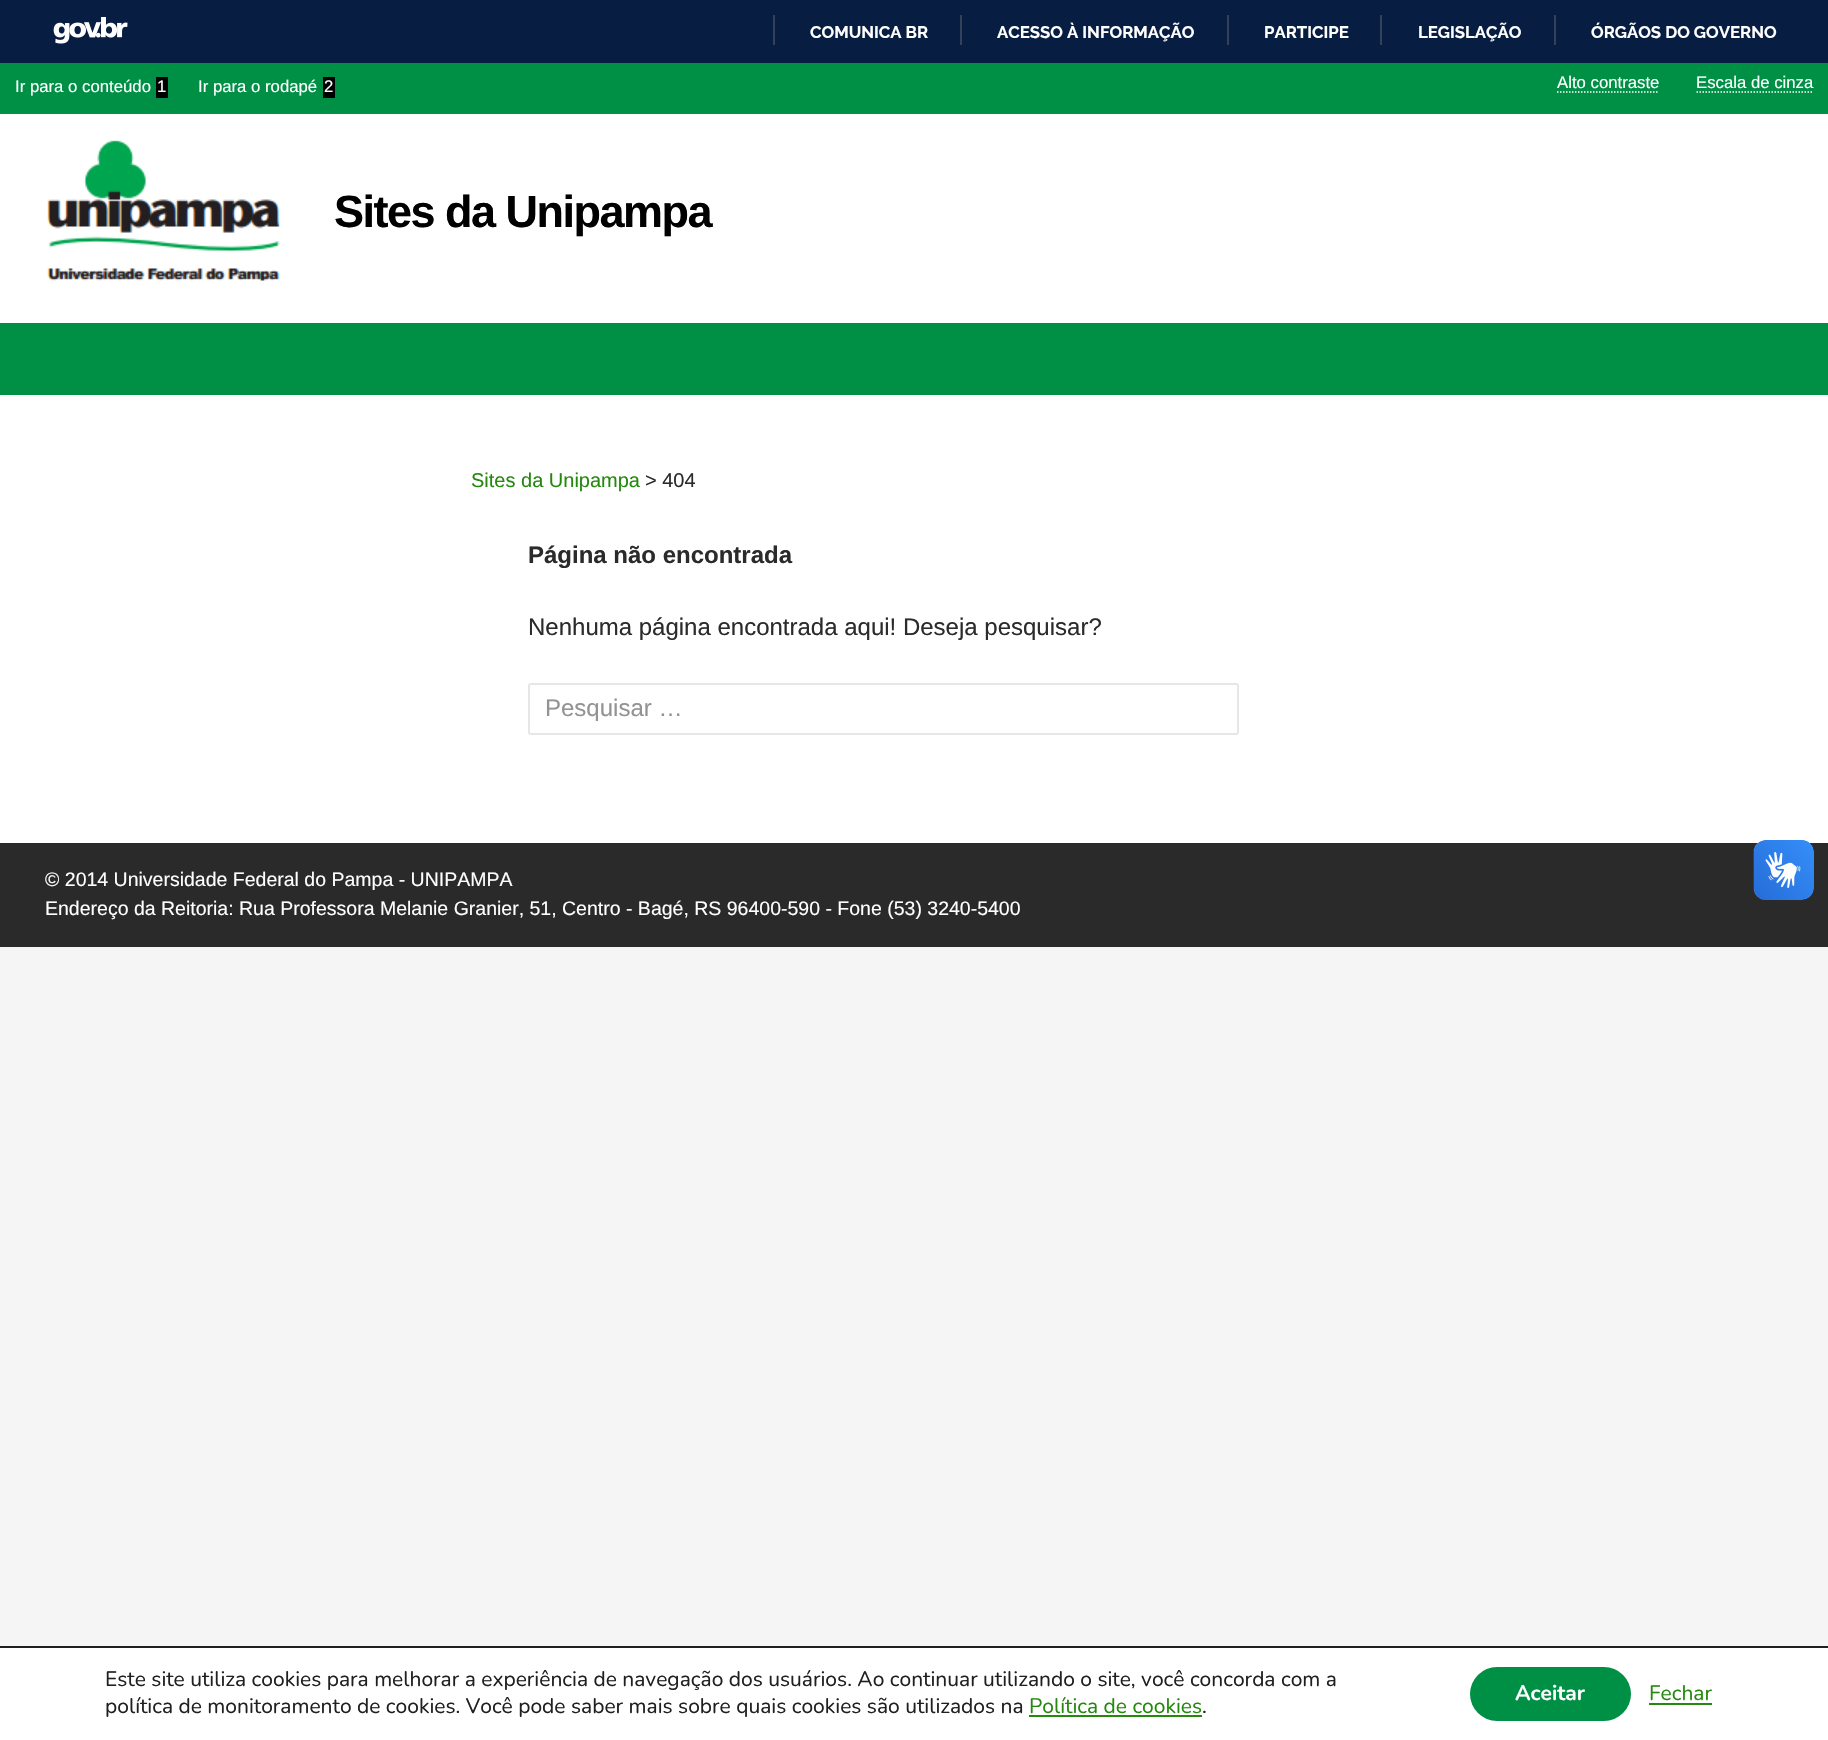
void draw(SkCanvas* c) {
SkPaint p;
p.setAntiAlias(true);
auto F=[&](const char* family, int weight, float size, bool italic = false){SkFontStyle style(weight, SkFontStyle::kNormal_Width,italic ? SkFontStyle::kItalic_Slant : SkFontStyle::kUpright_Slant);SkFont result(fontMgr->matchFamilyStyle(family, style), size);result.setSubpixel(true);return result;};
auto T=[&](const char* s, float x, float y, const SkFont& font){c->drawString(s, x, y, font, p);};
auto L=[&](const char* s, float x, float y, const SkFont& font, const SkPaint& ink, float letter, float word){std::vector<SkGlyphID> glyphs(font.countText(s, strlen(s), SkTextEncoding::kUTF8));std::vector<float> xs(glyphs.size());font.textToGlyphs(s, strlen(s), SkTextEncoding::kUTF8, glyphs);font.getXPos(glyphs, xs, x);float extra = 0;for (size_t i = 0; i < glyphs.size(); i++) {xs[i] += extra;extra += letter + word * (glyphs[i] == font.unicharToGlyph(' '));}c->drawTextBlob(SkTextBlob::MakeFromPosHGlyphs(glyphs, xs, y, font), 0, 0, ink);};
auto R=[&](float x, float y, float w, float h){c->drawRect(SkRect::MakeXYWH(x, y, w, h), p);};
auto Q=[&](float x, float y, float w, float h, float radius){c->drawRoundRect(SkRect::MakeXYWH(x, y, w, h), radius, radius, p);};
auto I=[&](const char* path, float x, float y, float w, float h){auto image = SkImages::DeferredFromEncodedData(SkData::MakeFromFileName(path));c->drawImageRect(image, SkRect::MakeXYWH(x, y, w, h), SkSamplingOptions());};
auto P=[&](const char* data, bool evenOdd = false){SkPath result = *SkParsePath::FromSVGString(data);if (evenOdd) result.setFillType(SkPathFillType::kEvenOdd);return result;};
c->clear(0xfff5f5f5);
p.setColor(0xffffffff);
R(0,114,1828,729);
p.setColor(0xff071d41);
R(0,0,1828,63);
I("1.png",53,17,75,27);
p.setColor(0xff32425b);
R(773,15,2,30);
auto f1 = F("Raleway",700,16.75);
p.setColor(0xffffffff);
T("COMUNICA BR",810,38,f1);
p.setColor(0xff32425b);
R(960,15,2,30);
p.setColor(0xffffffff);
T("ACESSO À INFORMAÇÃO",997,38,f1);
p.setColor(0xff32425b);
R(1227,15,2,30);
p.setColor(0xffffffff);
T("PARTICIPE",1264,38,f1);
p.setColor(0xff32425b);
R(1380,15,2,30);
p.setColor(0xffffffff);
T("LEGISLAÇÃO",1418,38,f1);
p.setColor(0xff32425b);
R(1554,15,2,30);
p.setColor(0xffffffff);
T("ÓRGÃOS DO GOVERNO",1591,38,f1);
p.setColor(0xff009045);
R(0,63,1828,51);
auto f2 = F("Liberation Sans",400,16.75);
p.setColor(0xffffffff);
T("Ir para o conteúdo",15,92,f2);
p.setColor(0xff000000);
R(156,77,12,21);
p.setColor(0xffffffff);
T("1",157,92,f2);
T("Ir para o rodapé",198,92,f2);
p.setColor(0xff000000);
R(323,77,12,21);
p.setColor(0xffffffff);
T("2",324,92,f2);
T("Alto contraste",1557,88,f2);
p.setStroke(true);
p.setStrokeWidth(1.5);
p.setPathEffect(SkDashPathEffect::Make({{1.5f,1.5f}}, 0));
c->drawPath(P("M1557 92h102"),p);
p.setPathEffect(nullptr);
p.setStroke(false);
T("Escala de cinza",1696,88,f2);
p.setStroke(true);
p.setPathEffect(SkDashPathEffect::Make({{1.5f,1.5f}}, 0));
c->drawPath(P("M1696.5 92h117"),p);
p.setPathEffect(nullptr);
I("2.png",47,140,233,141);
auto f3 = F("Liberation Sans",700,45);
p.setStroke(false);
p.setColor(0xff000000);
L("Sites da Unipampa",334,227,f3,p,-1.5,0);
p.setColor(0xff009045);
R(0,323,1828,72);
auto f4 = F("Liberation Sans",400,20);
p.setColor(0xff24890d);
T("Sites da Unipampa",471,487,f4);
p.setColor(0xff2b2b2b);
T("> 404",645,487,f4);
auto f5 = F("Liberation Sans",700,24);
T("Página não encontrada",528,563,f5);
auto f6 = F("Liberation Sans",400,24);
T("Nenhuma página encontrada aqui! Deseja pesquisar?",528,635,f6);
p.setStroke(true);
p.setStrokeWidth(2);
p.setColor(0xffe6e6e6);
c->drawRoundRect(SkRect::MakeXYWH(529,684,709,50),2,2,p);
p.setStroke(false);
p.setColor(0xff939393);
T("Pesquisar …",545,716,f6);
p.setColor(0xff2a2a2a);
R(0,843,1828,104);
auto f7 = F("Liberation Sans",400,19.5);
p.setColor(0xffffffff);
T("© 2014 Universidade Federal do Pampa - UNIPAMPA",45,886,f7);
T("Endereço da Reitoria: Rua Professora Melanie Granier, 51, Centro - Bagé, RS 96400-590 - Fone (53) 3240-5400",45,915,f7);
I("3.png",1753,840,61,60);
I("4.png",1754,840,60,60);
R(0,1648,1828,92);
p.setColor(0xff202020);
R(0,1646,1828,2);
auto f8 = F("Nunito",400,21);
T("Este site utiliza cookies para melhorar a experiência de navegação dos usuários. Ao continuar utilizando o site, você concorda com a",105,1686,f8);
T("política de monitoramento de cookies. Você pode saber mais sobre quais cookies são utilizados na",105,1713,f8);
p.setColor(0xff24890d);
T("Política de cookies",1029,1713,f8);
R(1029,1715,173,2);
p.setColor(0xff202020);
T(".",1202,1713,f8);
p.setColor(0xff009045);
Q(1470,1667,161,54,27);
auto f9 = F("Nunito",700,21);
p.setColor(0xffffffff);
T("Aceitar",1515,1700,f9);
p.setColor(0xff24890d);
T("Fechar",1649,1700,f8);
R(1649,1703,63,2);
}
